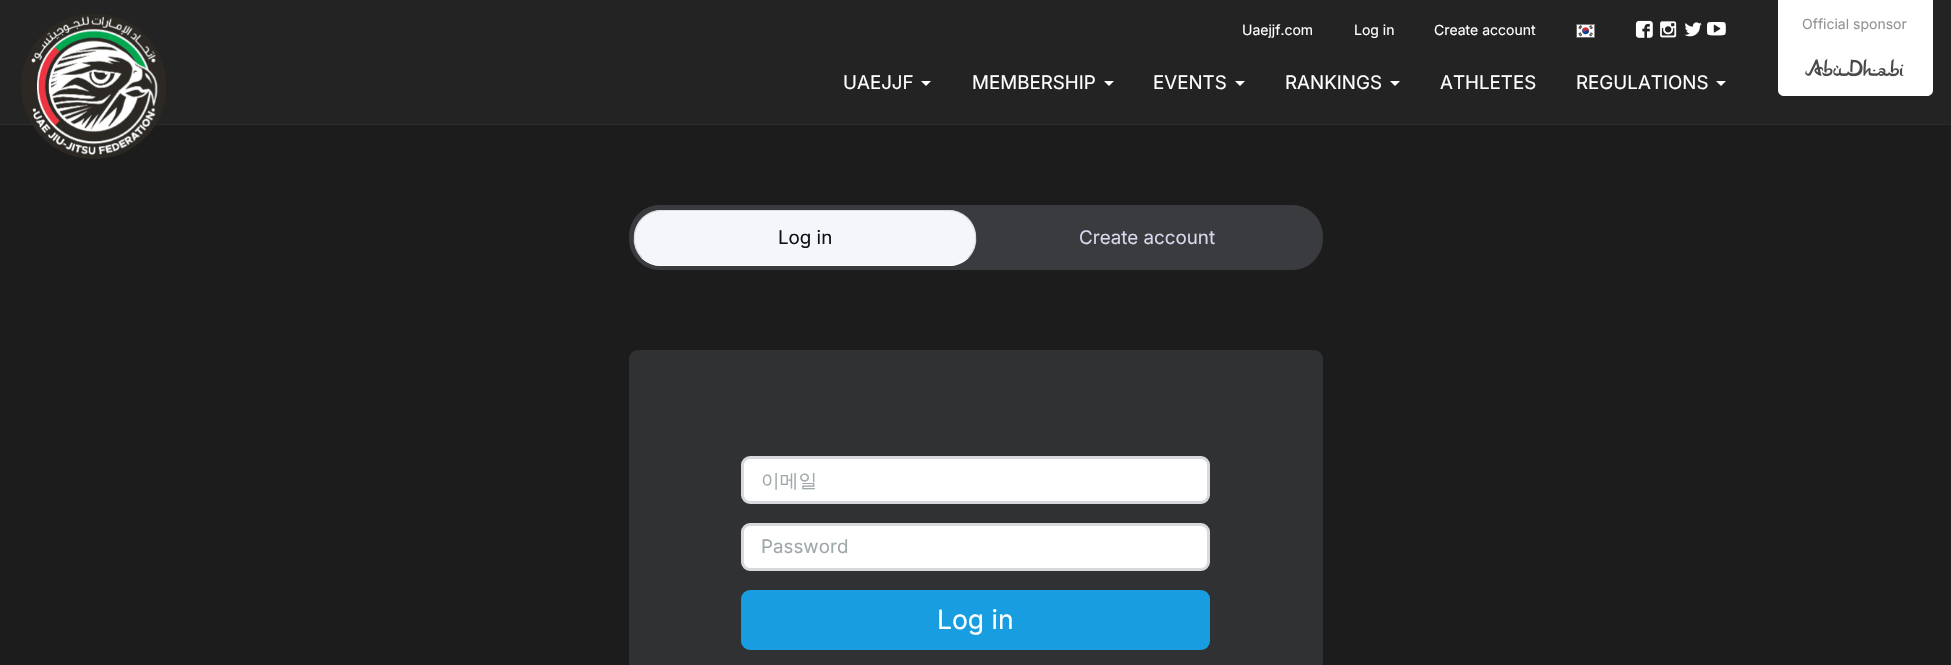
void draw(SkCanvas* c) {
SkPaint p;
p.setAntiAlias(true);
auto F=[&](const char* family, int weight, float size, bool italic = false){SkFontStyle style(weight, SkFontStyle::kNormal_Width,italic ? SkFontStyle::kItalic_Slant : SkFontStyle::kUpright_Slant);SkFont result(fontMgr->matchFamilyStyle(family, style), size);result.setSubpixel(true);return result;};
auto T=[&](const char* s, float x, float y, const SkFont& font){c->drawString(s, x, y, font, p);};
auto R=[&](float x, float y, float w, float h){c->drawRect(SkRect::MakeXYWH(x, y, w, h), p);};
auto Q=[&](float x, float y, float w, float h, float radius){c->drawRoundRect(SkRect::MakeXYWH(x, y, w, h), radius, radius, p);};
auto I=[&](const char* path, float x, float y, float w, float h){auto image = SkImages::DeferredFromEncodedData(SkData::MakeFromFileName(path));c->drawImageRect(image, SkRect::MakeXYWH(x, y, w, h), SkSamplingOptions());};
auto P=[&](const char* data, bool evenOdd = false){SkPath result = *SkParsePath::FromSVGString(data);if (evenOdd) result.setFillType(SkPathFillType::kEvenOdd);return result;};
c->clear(0xff1c1c1c);
p.setColor(0xff232323);
R(0,0,1951,124);
p.setColor(0xff2d2d2d);
R(0,124,1951,1);
I("1.png",21,14,145,145);
auto f1 = F("Inter",400,14);
p.setColor(0xffffffff);
T("Uaejjf.com",1242,35,f1);
T("Log in",1354,35,f1);
T("Create account",1434,35,f1);
I("2.png",1576,24,19,14);
p.setStroke(true);
p.setStrokeWidth(1);
p.setColor(0x80000000);
c->drawRect(SkRect::MakeXYWH(1576.5,24.5,18,13),p);
I("3.png",1635,20,18,18);
I("4.png",1660,21,17,17);
I("5.png",1684,22,18,15);
auto f2 = F("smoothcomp",400,18.75);
p.setStroke(false);
p.setColor(0xffffffff);
T("#",1707,38,f2);
auto f3 = F("Inter",400,18.75);
T("UAEJJF",843,89,f3);
c->drawPath(P("M921 81h10l-5 5z"),p);
T("MEMBERSHIP",972,89,f3);
c->drawPath(P("M1104 81h10l-5 5z"),p);
T("EVENTS",1153,89,f3);
c->drawPath(P("M1235 81h10l-5 5z"),p);
T("RANKINGS",1285,89,f3);
c->drawPath(P("M1390 81h10l-5 5z"),p);
T("ATHLETES",1440,89,f3);
T("REGULATIONS",1576,89,f3);
c->drawPath(P("M1716 81h10l-5 5z"),p);
c->drawPath(P("M1778 0h155v90c0 3.5-2.5 6-6 6h-143c-3.5 0-6-2.5-6-6z"),p);
p.setColor(0xff939393);
T("Official sponsor",1802,29,f1);
I("6.png",1805,58,99,19);
p.setColor(0xff3a3b3e);
Q(629,205,694,65,31);
p.setColor(0xfff4f6fb);
Q(634,210,342,56,28);
p.setStroke(true);
p.setStrokeWidth(1.2);
p.setColor(0xffffffff);
c->drawPath(P("M968 258c-5.5 5-12 7.5-19 7.5h-288c-7 0-13.5-2.5-19-7.5"),p);
p.setColor(0xffdddddd);
c->drawPath(P("M642 258c-6-6.5-8.5-14.5-7.5-23c1.5-14 13-24.5 26.5-24.5h288c13.5 0 25 10.5 26.5 24.5c1 8.5-1.5 16.5-7.5 23"),p);
p.setStroke(false);
p.setColor(0xff101112);
T("Log in",778,244,f3);
p.setColor(0xffd6d9ec);
T("Create account",1079,244,f3);
p.setColor(0xff303133);
Q(629,350,694,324,9);
p.setColor(0xffffffff);
c->drawRoundRect(SkRect::MakeXYWH(742.5,457.5,466,45),7.5,7.5,p);
p.setStroke(true);
p.setStrokeWidth(3);
p.setColor(0xffd7d9dd);
c->drawRoundRect(SkRect::MakeXYWH(742.5,457.5,466,45),7.5,7.5,p);
auto f4 = F("WenQuanYi Zen Hei",500,18.75);
p.setStroke(false);
p.setColor(0xff9fa8aa);
T("이메일",761,487,f4);
p.setColor(0xffffffff);
c->drawRoundRect(SkRect::MakeXYWH(742.5,524.5,466,45),7.5,7.5,p);
p.setStroke(true);
p.setColor(0xffd7d9dd);
c->drawRoundRect(SkRect::MakeXYWH(742.5,524.5,466,45),7.5,7.5,p);
p.setStroke(false);
p.setColor(0xff9fa8aa);
T("Password",761,553,f3);
p.setColor(0xff179de0);
Q(741,590,469,60,9);
auto f5 = F("Inter",400,26.5);
p.setColor(0xffffffff);
T("Log in",937,629,f5);
}
